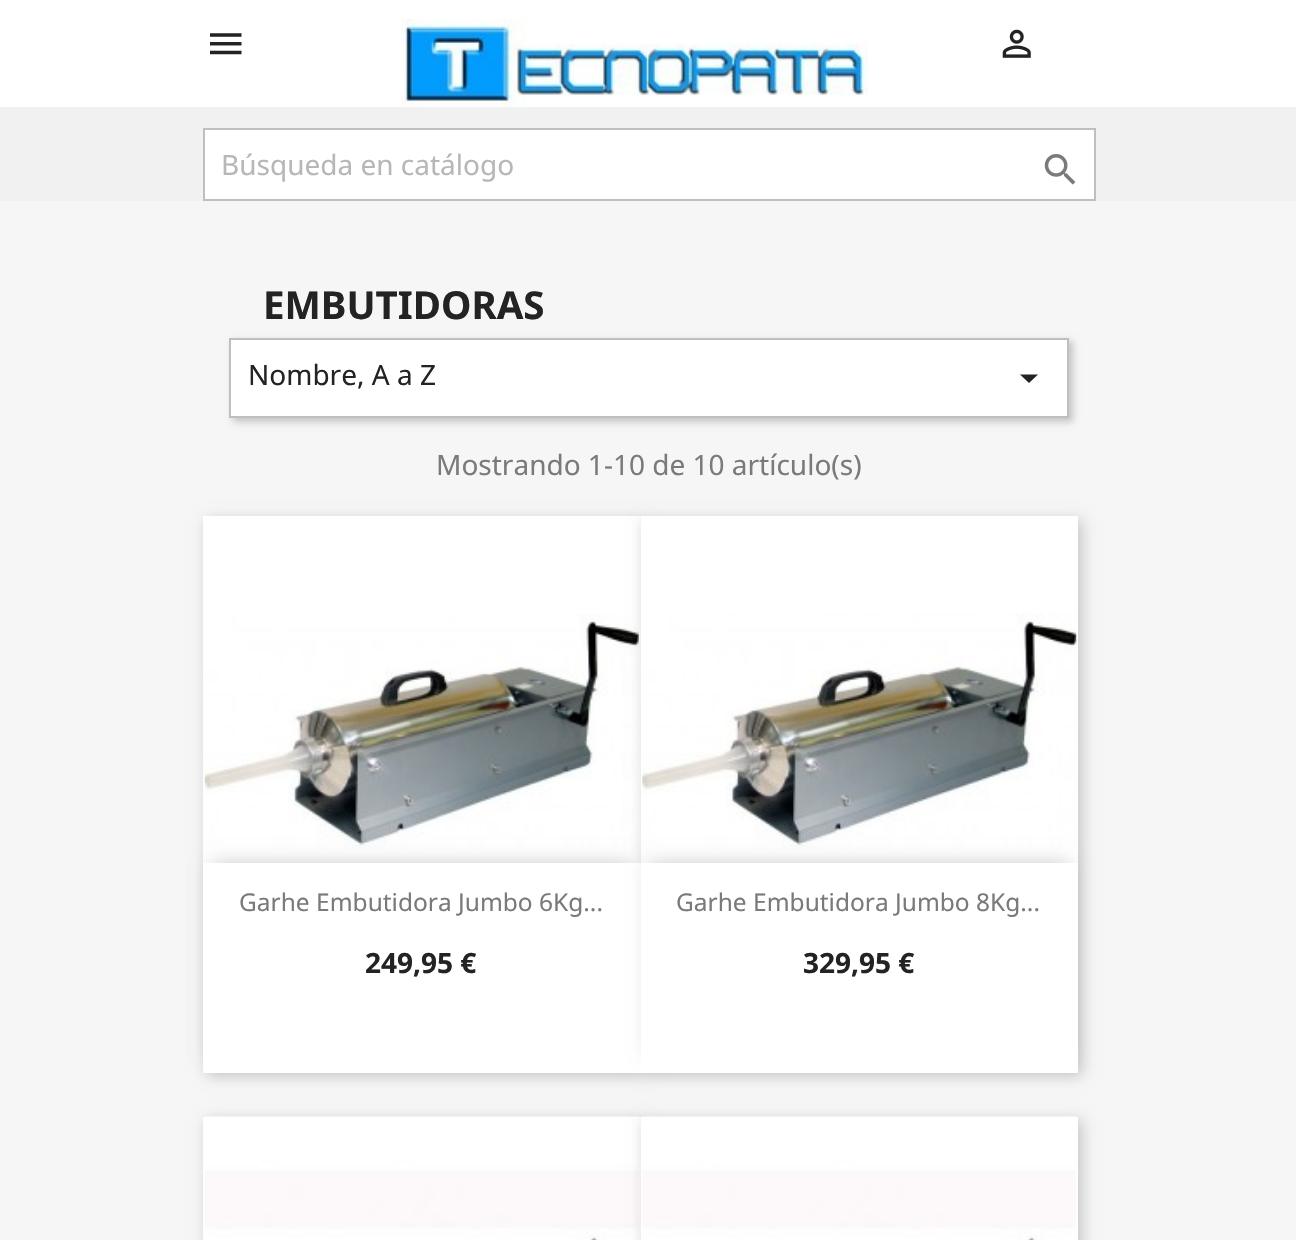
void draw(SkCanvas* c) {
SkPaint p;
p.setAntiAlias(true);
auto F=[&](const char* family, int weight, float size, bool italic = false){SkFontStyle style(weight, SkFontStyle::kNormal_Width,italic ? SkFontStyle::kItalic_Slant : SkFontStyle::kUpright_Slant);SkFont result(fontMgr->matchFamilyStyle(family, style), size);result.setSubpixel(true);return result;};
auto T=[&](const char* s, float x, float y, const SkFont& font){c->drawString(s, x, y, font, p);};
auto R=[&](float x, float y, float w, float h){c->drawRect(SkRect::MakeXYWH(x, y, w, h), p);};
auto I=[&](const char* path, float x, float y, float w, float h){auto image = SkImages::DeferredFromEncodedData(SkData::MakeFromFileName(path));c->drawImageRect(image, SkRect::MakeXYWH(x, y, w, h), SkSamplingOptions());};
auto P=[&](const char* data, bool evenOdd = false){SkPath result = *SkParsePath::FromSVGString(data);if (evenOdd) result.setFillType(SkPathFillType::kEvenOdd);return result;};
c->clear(0xfff1f1f1);
p.setColor(0xffffffff);
R(0,0,1296,107);
I("1.png",210,33,32,22);
I("2.png",401,19,467,88);
I("3.png",1002,29,29,29);
c->drawRect(SkRect::MakeXYWH(204,129,891,71),p);
p.setStroke(true);
p.setStrokeWidth(2);
p.setColor(0xffbfbfbf);
c->drawRect(SkRect::MakeXYWH(204,129,891,71),p);
auto f1 = F("Noto Sans",400,28);
p.setStroke(false);
p.setColor(0xffb7b7b7);
T("Búsqueda en catálogo",221,175,f1);
I("4.png",1044,154,32,31);
p.setColor(0xfff6f6f6);
R(0,201,1296,1039);
auto f2 = F("Noto Sans",700,38.5);
p.setColor(0xff232323);
T("EMBUTIDORAS",263,319,f2);
p.setColor(0x33000000);
p.setMaskFilter(SkMaskFilter::MakeBlur(kNormal_SkBlurStyle, 3.5));
c->drawRect(SkRect::MakeXYWH(233,341,840,81),p);
p.setMaskFilter(nullptr);
p.setColor(0xffffffff);
c->drawRect(SkRect::MakeXYWH(230,339,838,78),p);
p.setStroke(true);
p.setColor(0xffbfbfbf);
c->drawRect(SkRect::MakeXYWH(230,339,838,78),p);
p.setStroke(false);
p.setColor(0xff232323);
T("Nombre, A a Z",248,385,f1);
c->drawPath(P("M1020 374.5h18l-9 8.5z"),p);
p.setColor(0xff7a7a7a);
T("Mostrando 1-10 de 10 artículo(s)",436,475,f1);
p.setColor(0x33000000);
p.setMaskFilter(SkMaskFilter::MakeBlur(kNormal_SkBlurStyle, 7));
c->drawRect(SkRect::MakeXYWH(207,520,437,556),p);
p.setMaskFilter(nullptr);
p.setColor(0xffffffff);
R(203,516,438,347);
I("5.png",204,614,435,236);
p.setColor(0x33000000);
p.setMaskFilter(SkMaskFilter::MakeBlur(kNormal_SkBlurStyle, 7));
c->drawRect(SkRect::MakeXYWH(644,520,438,556),p);
p.setMaskFilter(nullptr);
p.setColor(0xffffffff);
R(641,516,437,347);
I("6.png",642,613,435,237);
p.setColor(0x33000000);
p.setMaskFilter(SkMaskFilter::MakeBlur(kNormal_SkBlurStyle, 9));
c->drawRect(SkRect::MakeXYWH(212,863,420,192),p);
p.setMaskFilter(nullptr);
p.setColor(0xffffffff);
R(203,863,438,210);
auto f3 = F("Noto Sans",400,24.5);
p.setColor(0xff7a7a7a);
T("Garhe Embutidora Jumbo 6Kg...",239,911,f3);
auto f4 = F("Noto Sans",700,28);
p.setColor(0xff232323);
T("249,95 €",365,973,f4);
p.setColor(0x33000000);
p.setMaskFilter(SkMaskFilter::MakeBlur(kNormal_SkBlurStyle, 9));
c->drawRect(SkRect::MakeXYWH(649,863,420,192),p);
p.setMaskFilter(nullptr);
p.setColor(0xffffffff);
R(641,863,437,210);
p.setColor(0xff7a7a7a);
T("Garhe Embutidora Jumbo 8Kg...",676,911,f3);
p.setColor(0xff232323);
T("329,95 €",803,973,f4);
p.setColor(0x33000000);
p.setMaskFilter(SkMaskFilter::MakeBlur(kNormal_SkBlurStyle, 7));
c->drawRect(SkRect::MakeXYWH(207,1120,437,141),p);
p.setMaskFilter(nullptr);
p.setColor(0xffffffff);
R(203,1117,438,123);
I("7.png",205,1116,434,124);
p.setColor(0x33000000);
p.setMaskFilter(SkMaskFilter::MakeBlur(kNormal_SkBlurStyle, 7));
c->drawRect(SkRect::MakeXYWH(644,1120,438,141),p);
p.setMaskFilter(nullptr);
p.setColor(0xffffffff);
R(641,1117,437,123);
I("8.png",642,1116,434,124);
}
